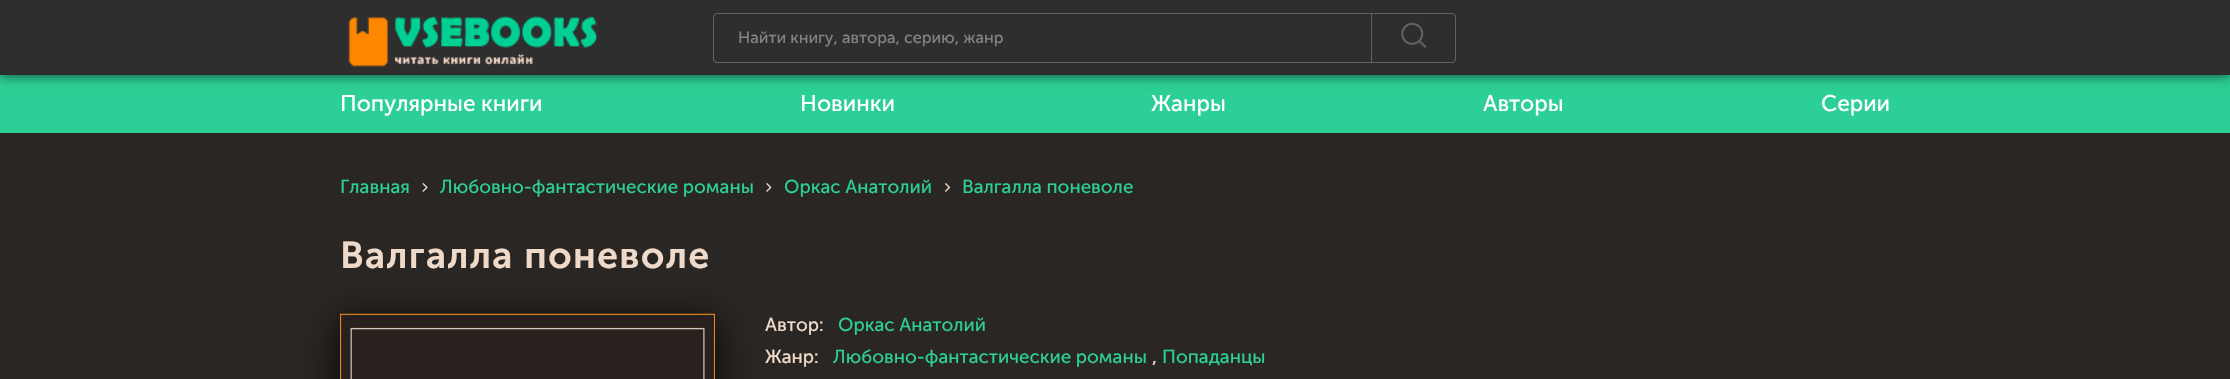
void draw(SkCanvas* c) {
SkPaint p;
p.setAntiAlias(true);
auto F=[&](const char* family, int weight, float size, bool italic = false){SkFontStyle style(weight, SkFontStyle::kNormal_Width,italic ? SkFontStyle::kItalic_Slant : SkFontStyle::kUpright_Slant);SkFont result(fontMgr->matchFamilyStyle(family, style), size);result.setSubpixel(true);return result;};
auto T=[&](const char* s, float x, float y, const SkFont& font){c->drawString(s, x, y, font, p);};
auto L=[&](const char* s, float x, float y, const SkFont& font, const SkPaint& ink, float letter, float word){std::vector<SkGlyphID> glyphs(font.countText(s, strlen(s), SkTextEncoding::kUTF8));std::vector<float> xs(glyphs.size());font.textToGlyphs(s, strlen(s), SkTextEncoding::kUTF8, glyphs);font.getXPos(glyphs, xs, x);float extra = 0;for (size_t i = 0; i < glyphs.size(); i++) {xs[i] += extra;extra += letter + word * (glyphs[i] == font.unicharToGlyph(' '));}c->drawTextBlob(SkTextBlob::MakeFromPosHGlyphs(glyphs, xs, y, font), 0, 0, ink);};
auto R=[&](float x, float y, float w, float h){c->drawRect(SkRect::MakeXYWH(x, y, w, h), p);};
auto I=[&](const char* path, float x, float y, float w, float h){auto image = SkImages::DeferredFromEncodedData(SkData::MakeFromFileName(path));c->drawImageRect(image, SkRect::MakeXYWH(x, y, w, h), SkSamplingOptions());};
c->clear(0xff2a2623);
p.setColor(0xff2ccf95);
R(0,75,2230,58);
p.setColor(0xb3000000);
p.setMaskFilter(SkMaskFilter::MakeBlur(kNormal_SkBlurStyle, 6));
c->drawRect(SkRect::MakeXYWH(0,0,2230,75),p);
p.setMaskFilter(nullptr);
p.setColor(0xff2e2e2e);
R(0,0,2230,75);
I("1.png",348,16,249,51);
p.setStroke(true);
p.setStrokeWidth(1);
p.setColor(0xff626262);
c->drawRoundRect(SkRect::MakeXYWH(713.5,13.5,742,49),3.5,3.5,p);
auto f1 = F("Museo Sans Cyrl",400,16.25);
p.setStroke(false);
p.setColor(0xff828282);
T("Найти книгу, автора, серию, жанр",738,43,f1);
p.setColor(0xff626262);
R(1371,13,1,50);
I("2.png",1401,22,26,26);
auto f2 = F("Museo Sans Cyrl",400,22.5);
p.setColor(0xffffffff);
T("Популярные книги",340,111,f2);
T("Новинки",800,111,f2);
T("Жанры",1151,111,f2);
T("Авторы",1483,111,f2);
T("Серии",1821,111,f2);
auto f3 = F("Museo Sans Cyrl",400,18.75);
p.setColor(0xff2ccf95);
T("Главная",340,193,f3);
I("3.png",422,183,6,9);
T("Любовно-фантастические романы",440,193,f3);
I("4.png",766,183,6,9);
T("Оркас Анатолий",784,193,f3);
I("5.png",945,183,6,9);
T("Валгалла поневоле",962,193,f3);
auto f4 = F("Museo Sans Cyrl",600,37.5);
p.setColor(0xffefdac9);
L("Валгалла поневоле",340,268,f4,p,1.25,0);
p.setColor(0xe6000000);
p.setMaskFilter(SkMaskFilter::MakeBlur(kNormal_SkBlurStyle, 20));
c->drawRect(SkRect::MakeXYWH(340,320,375,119),p);
p.setMaskFilter(nullptr);
I("6.png",340,313,375,66);
p.setColor(0xffefdac9);
T("Автор:",765,331,f3);
p.setColor(0xff2ccf95);
T("Оркас Анатолий",838,331,f3);
p.setColor(0xffefdac9);
T("Жанр:",765,363,f3);
p.setColor(0xff2ccf95);
T("Любовно-фантастические романы",833,363,f3);
p.setColor(0xffefdac9);
T(",",1152,363,f3);
p.setColor(0xff2ccf95);
T("Попаданцы",1162,363,f3);
}
